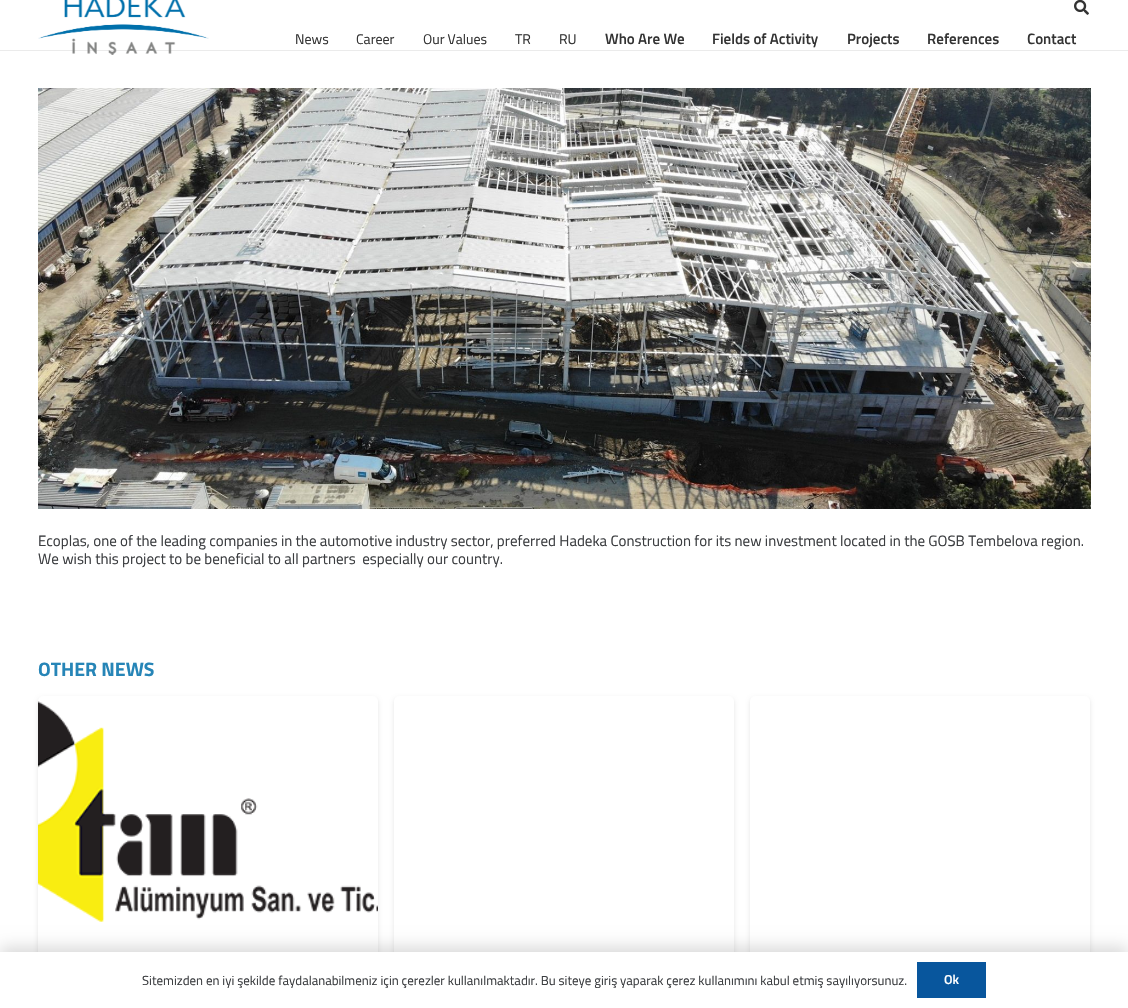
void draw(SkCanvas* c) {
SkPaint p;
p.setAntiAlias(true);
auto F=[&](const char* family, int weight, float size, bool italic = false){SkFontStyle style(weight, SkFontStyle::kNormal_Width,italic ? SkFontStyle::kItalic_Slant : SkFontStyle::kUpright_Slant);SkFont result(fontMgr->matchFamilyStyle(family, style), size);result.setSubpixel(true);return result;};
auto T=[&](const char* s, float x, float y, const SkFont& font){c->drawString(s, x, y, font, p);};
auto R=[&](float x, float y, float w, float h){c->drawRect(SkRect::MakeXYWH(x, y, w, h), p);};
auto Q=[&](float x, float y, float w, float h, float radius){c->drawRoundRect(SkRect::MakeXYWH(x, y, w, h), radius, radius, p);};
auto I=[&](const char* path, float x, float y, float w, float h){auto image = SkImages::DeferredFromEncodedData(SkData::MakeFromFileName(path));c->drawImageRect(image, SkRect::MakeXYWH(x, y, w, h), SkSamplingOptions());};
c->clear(0xffffffff);
p.setColor(0xffebebeb);
R(0,50,1128,1);
I("1.png",38,0,171,55);
I("2.png",1074,0,15,15);
auto f1 = F("Titillium Web",400,14);
p.setColor(0xff333333);
T("News",295,44,f1);
T("Career",356,44,f1);
T("Our Values",423,44,f1);
T("TR",515,44,f1);
T("RU",559,44,f1);
auto f2 = F("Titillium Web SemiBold",600,15);
T("Who Are We",605,44,f2);
T("Fields of Activity",712,44,f2);
T("Projects",847,44,f2);
T("References",927,44,f2);
T("Contact",1027,44,f2);
I("3.png",38,88,1053,421);
auto f3 = F("Titillium Web",400,15);
p.setColor(0xff3b3d40);
T("Ecoplas, one of the leading companies in the automotive industry sector, preferred Hadeka Construction for its new investment located in the GOSB Tembelova region.",38,546,f3);
T("We wish this project to be beneficial to all partners  especially our country.",38,564,f3);
auto f4 = F("Titillium Web",700,19.5);
p.setColor(0xff2685b7);
T("OTHER NEWS",38,676,f4);
p.setColor(0x1a000000);
p.setMaskFilter(SkMaskFilter::MakeBlur(kNormal_SkBlurStyle, 2));
c->drawRoundRect(SkRect::MakeXYWH(38,698,340,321),5,5,p);
p.setMaskFilter(nullptr);
p.setColor(0xffffffff);
Q(38,696,340,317,5);
I("4.png",38,701,340,221);
p.setColor(0x1a000000);
p.setMaskFilter(SkMaskFilter::MakeBlur(kNormal_SkBlurStyle, 2));
c->drawRoundRect(SkRect::MakeXYWH(394,698,340,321),5,5,p);
p.setMaskFilter(nullptr);
p.setColor(0xffffffff);
Q(394,696,340,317,5);
p.setColor(0x1a000000);
p.setMaskFilter(SkMaskFilter::MakeBlur(kNormal_SkBlurStyle, 2));
c->drawRoundRect(SkRect::MakeXYWH(750,698,340,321),5,5,p);
p.setMaskFilter(nullptr);
p.setColor(0xffffffff);
Q(750,696,340,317,5);
p.setColor(0x26000000);
p.setMaskFilter(SkMaskFilter::MakeBlur(kNormal_SkBlurStyle, 7.5));
c->drawRect(SkRect::MakeXYWH(0,947,1128,56),p);
p.setMaskFilter(nullptr);
p.setColor(0xffffffff);
R(0,952,1128,56);
auto f5 = F("Titillium Web",400,13);
p.setColor(0xff3b3d40);
T("Sitemizden en iyi şekilde faydalanabilmeniz için çerezler kullanılmaktadır. Bu siteye giriş yaparak çerez kullanımını kabul etmiş sayılıyorsunuz.",142,985,f5);
p.setColor(0xff08569d);
R(917,962,69,36);
auto f6 = F("Titillium Web SemiBold",600,13);
p.setColor(0xffffffff);
T("Ok",944,984,f6);
}
